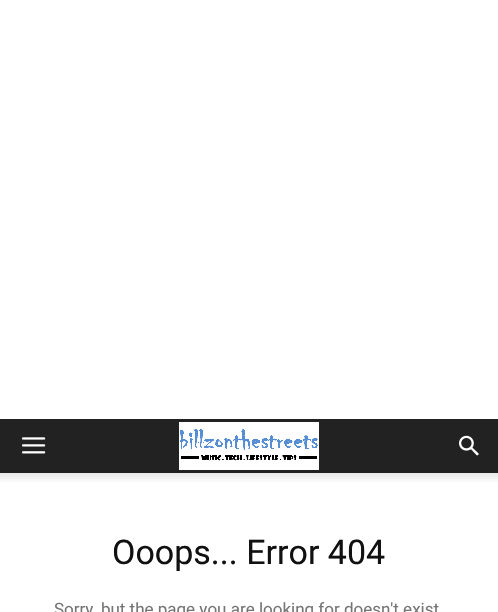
void draw(SkCanvas* c) {
SkPaint p;
p.setAntiAlias(true);
auto F=[&](const char* family, int weight, float size, bool italic = false){SkFontStyle style(weight, SkFontStyle::kNormal_Width,italic ? SkFontStyle::kItalic_Slant : SkFontStyle::kUpright_Slant);SkFont result(fontMgr->matchFamilyStyle(family, style), size);result.setSubpixel(true);return result;};
auto T=[&](const char* s, float x, float y, const SkFont& font){c->drawString(s, x, y, font, p);};
auto R=[&](float x, float y, float w, float h){c->drawRect(SkRect::MakeXYWH(x, y, w, h), p);};
auto I=[&](const char* path, float x, float y, float w, float h){auto image = SkImages::DeferredFromEncodedData(SkData::MakeFromFileName(path));c->drawImageRect(image, SkRect::MakeXYWH(x, y, w, h), SkSamplingOptions());};
c->clear(0xffffffff);
p.setColor(0xff222222);
R(0,419,498,54);
I("1.png",22,437,24,17);
I("2.png",179,422,140,48);
I("3.png",459,435,20,21);
I("4.png",0,473,498,9);
auto f1 = F("Roboto",400,34);
p.setColor(0xff111111);
T("Ooops... Error 404",112,564,f1);
auto f2 = F("Roboto",400,17);
p.setColor(0xff757575);
T("Sorry, but the page you are looking for doesn't exist",54,615,f2);
}
